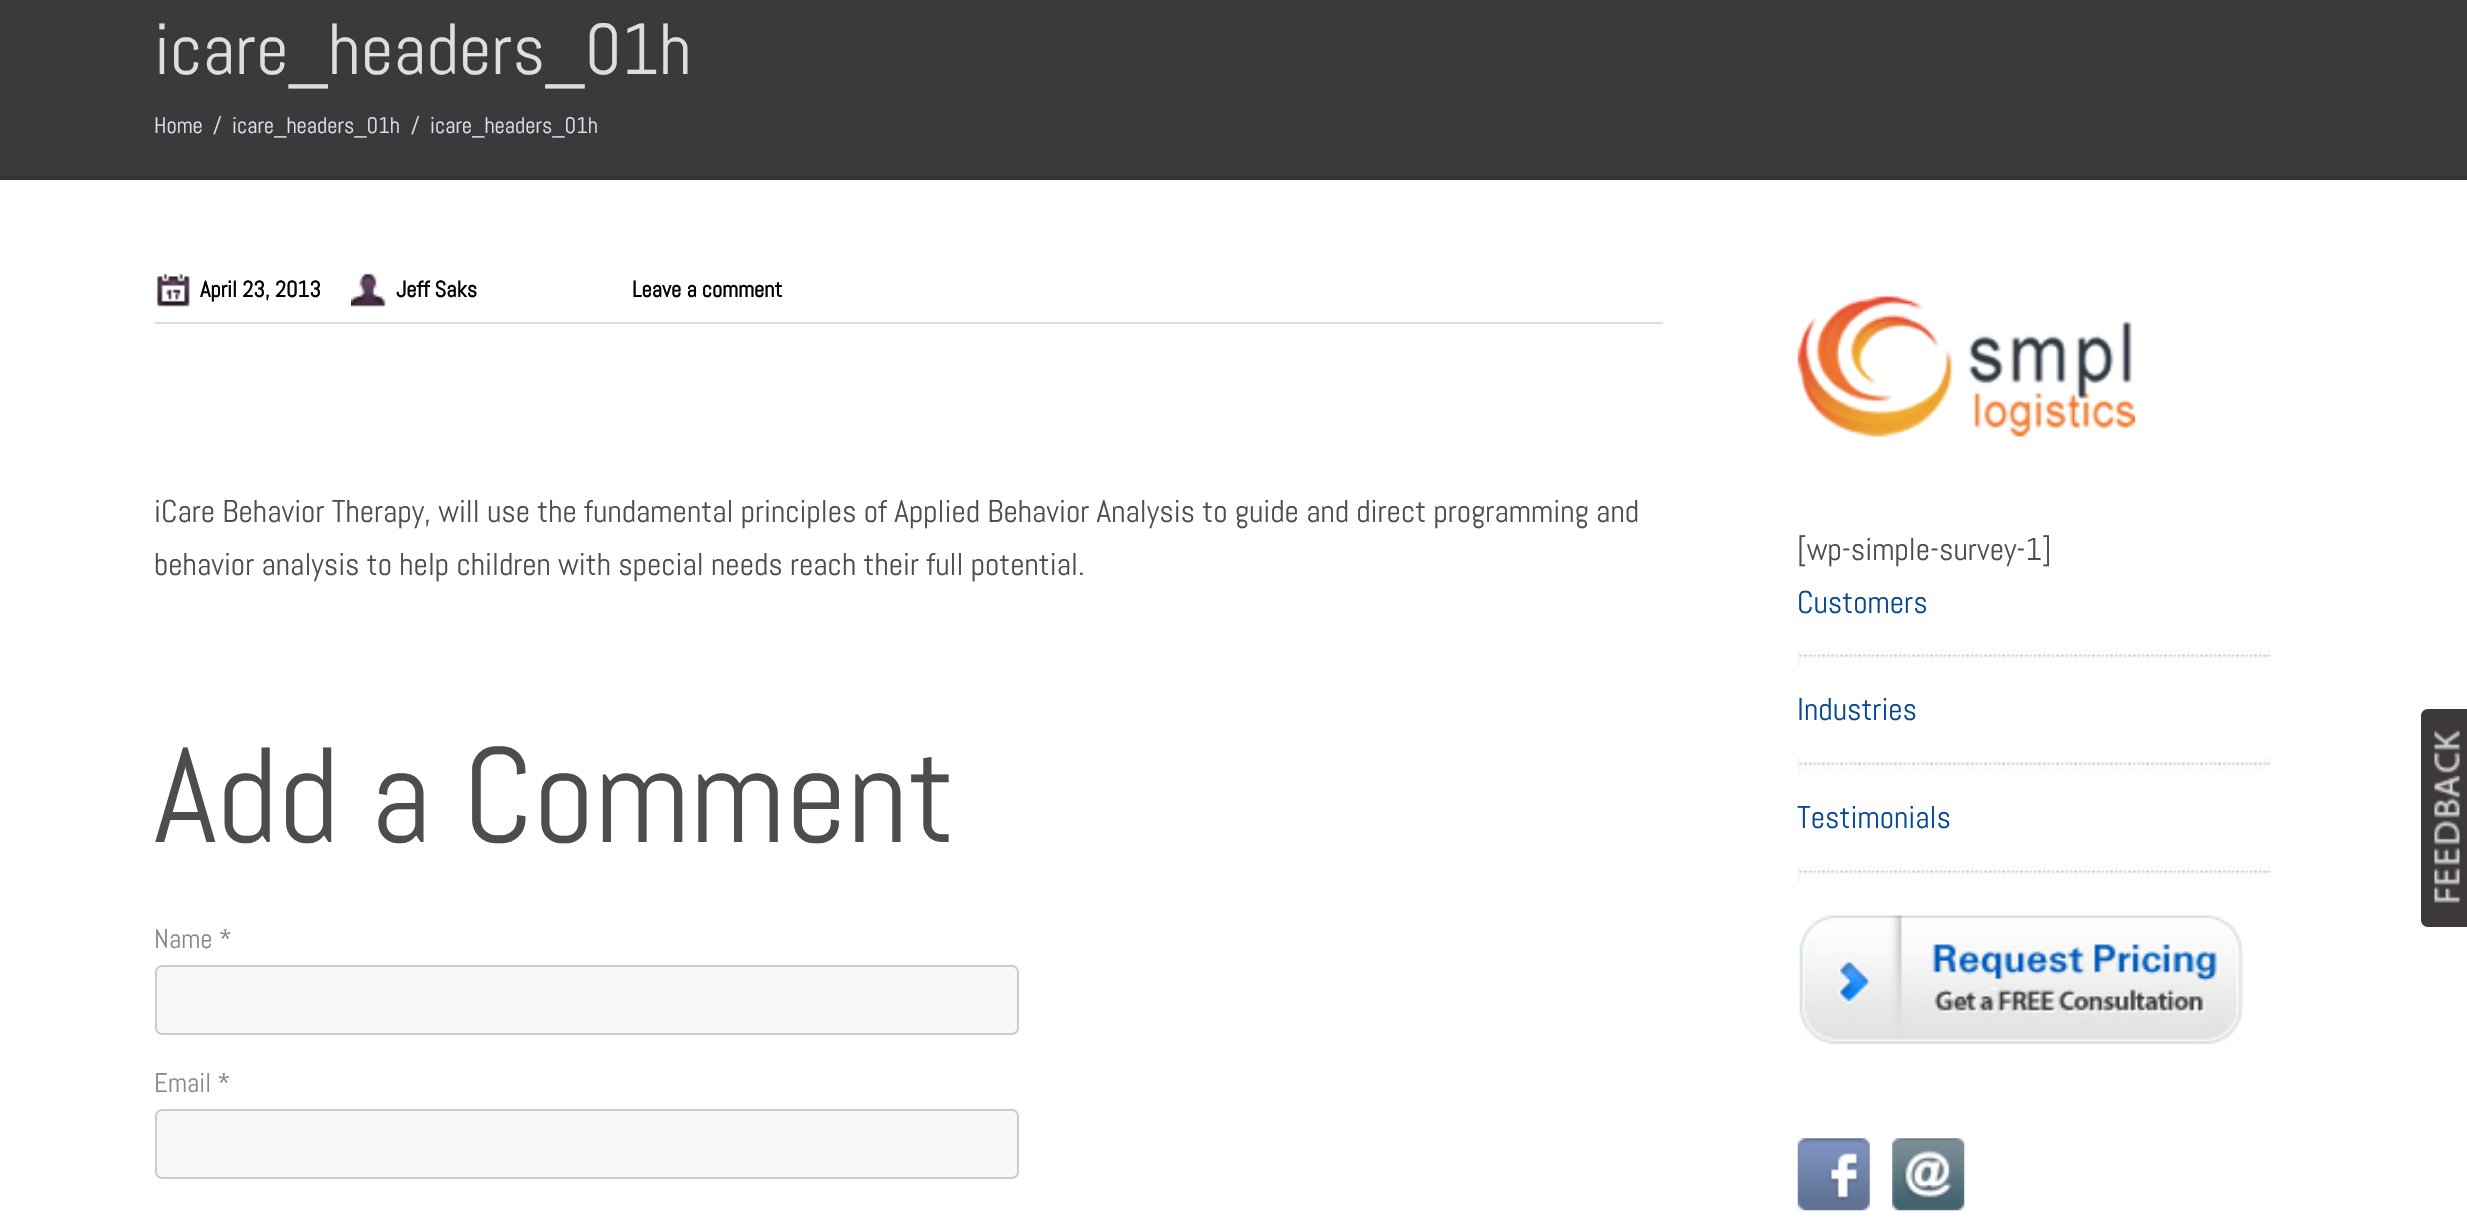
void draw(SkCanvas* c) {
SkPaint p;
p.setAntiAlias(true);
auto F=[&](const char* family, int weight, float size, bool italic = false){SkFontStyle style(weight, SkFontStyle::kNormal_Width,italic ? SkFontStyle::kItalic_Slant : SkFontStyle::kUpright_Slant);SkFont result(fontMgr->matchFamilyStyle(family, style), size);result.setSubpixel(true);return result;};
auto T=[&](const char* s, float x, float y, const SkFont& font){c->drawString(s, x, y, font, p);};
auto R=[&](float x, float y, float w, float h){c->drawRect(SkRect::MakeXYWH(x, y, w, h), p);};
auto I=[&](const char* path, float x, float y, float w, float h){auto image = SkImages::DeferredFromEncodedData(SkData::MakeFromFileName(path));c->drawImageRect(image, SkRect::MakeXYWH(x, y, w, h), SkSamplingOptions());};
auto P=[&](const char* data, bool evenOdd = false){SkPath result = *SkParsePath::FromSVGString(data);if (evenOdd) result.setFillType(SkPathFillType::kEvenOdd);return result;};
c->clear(0xffffffff);
p.setColor(0xff3a3a3d);
R(0,0,2467,180);
auto f1 = F("Abel",400,72);
p.setColor(0xffdfdede);
T("icare_headers_01h",154,74,f1);
auto f2 = F("Abel",400,22.5);
p.setColor(0xffdbe1eb);
T("Home",154,133,f2);
T("/",213,133,f2);
T("icare_headers_01h",232,133,f2);
T("/",411,133,f2);
T("icare_headers_01h",430,133,f2);
I("1.png",0,175,2467,5);
p.setColor(0xffdddddd);
R(155,322,1508,2);
I("2.png",157,273,33,34);
auto f3 = F("Abel",700,22.5);
p.setColor(0xff000000);
T("April 23, 2013",200,297,f3);
I("3.png",351,273,35,34);
T("Jeff Saks",396,297,f3);
T("Leave a comment",632,297,f3);
auto f4 = F("Abel",400,31.5);
p.setColor(0xff4d4d4d);
T("iCare Behavior Therapy, will use the fundamental principles of Applied Behavior Analysis to guide and direct programming and",154,522,f4);
T("behavior analysis to help children with special needs reach their full potential.",154,575,f4);
auto f5 = F("Abel",400,135);
T("Add a Comment",154,842,f5);
auto f6 = F("Abel",400,27);
p.setColor(0xff888888);
T("Name *",154,948,f6);
p.setColor(0xfff8f8f8);
c->drawRoundRect(SkRect::MakeXYWH(156,966,862,68),6,6,p);
p.setStroke(true);
p.setStrokeWidth(2);
p.setColor(0xffcccccc);
c->drawRoundRect(SkRect::MakeXYWH(156,966,862,68),6,6,p);
p.setStroke(false);
p.setColor(0xff888888);
T("Email *",154,1092,f6);
p.setColor(0xfff8f8f8);
c->drawRoundRect(SkRect::MakeXYWH(156,1110,862,68),6,6,p);
p.setStroke(true);
p.setColor(0xffcccccc);
c->drawRoundRect(SkRect::MakeXYWH(156,1110,862,68),6,6,p);
I("4.png",1797,296,339,141);
p.setStroke(false);
p.setColor(0xff4d4d4d);
T("[wp-simple-survey-1]",1797,560,f4);
p.setColor(0xff064894);
T("Customers",1797,613,f4);
I("5.png",1797,650,474,16);
T("Industries",1797,720,f4);
I("5.png",1797,758,474,16);
T("Testimonials",1797,828,f4);
I("5.png",1797,866,474,16);
I("6.png",1799,915,445,130);
I("7.png",1797,1138,73,73);
I("8.png",1892,1138,73,73);
p.setColor(0xff3d393a);
c->drawPath(P("M2428 709h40v218h-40c-4 0-7-3-7-7v-204c0-4 3-7 7-7z"),p);
I("9.png",2434,729,26,174);
}
